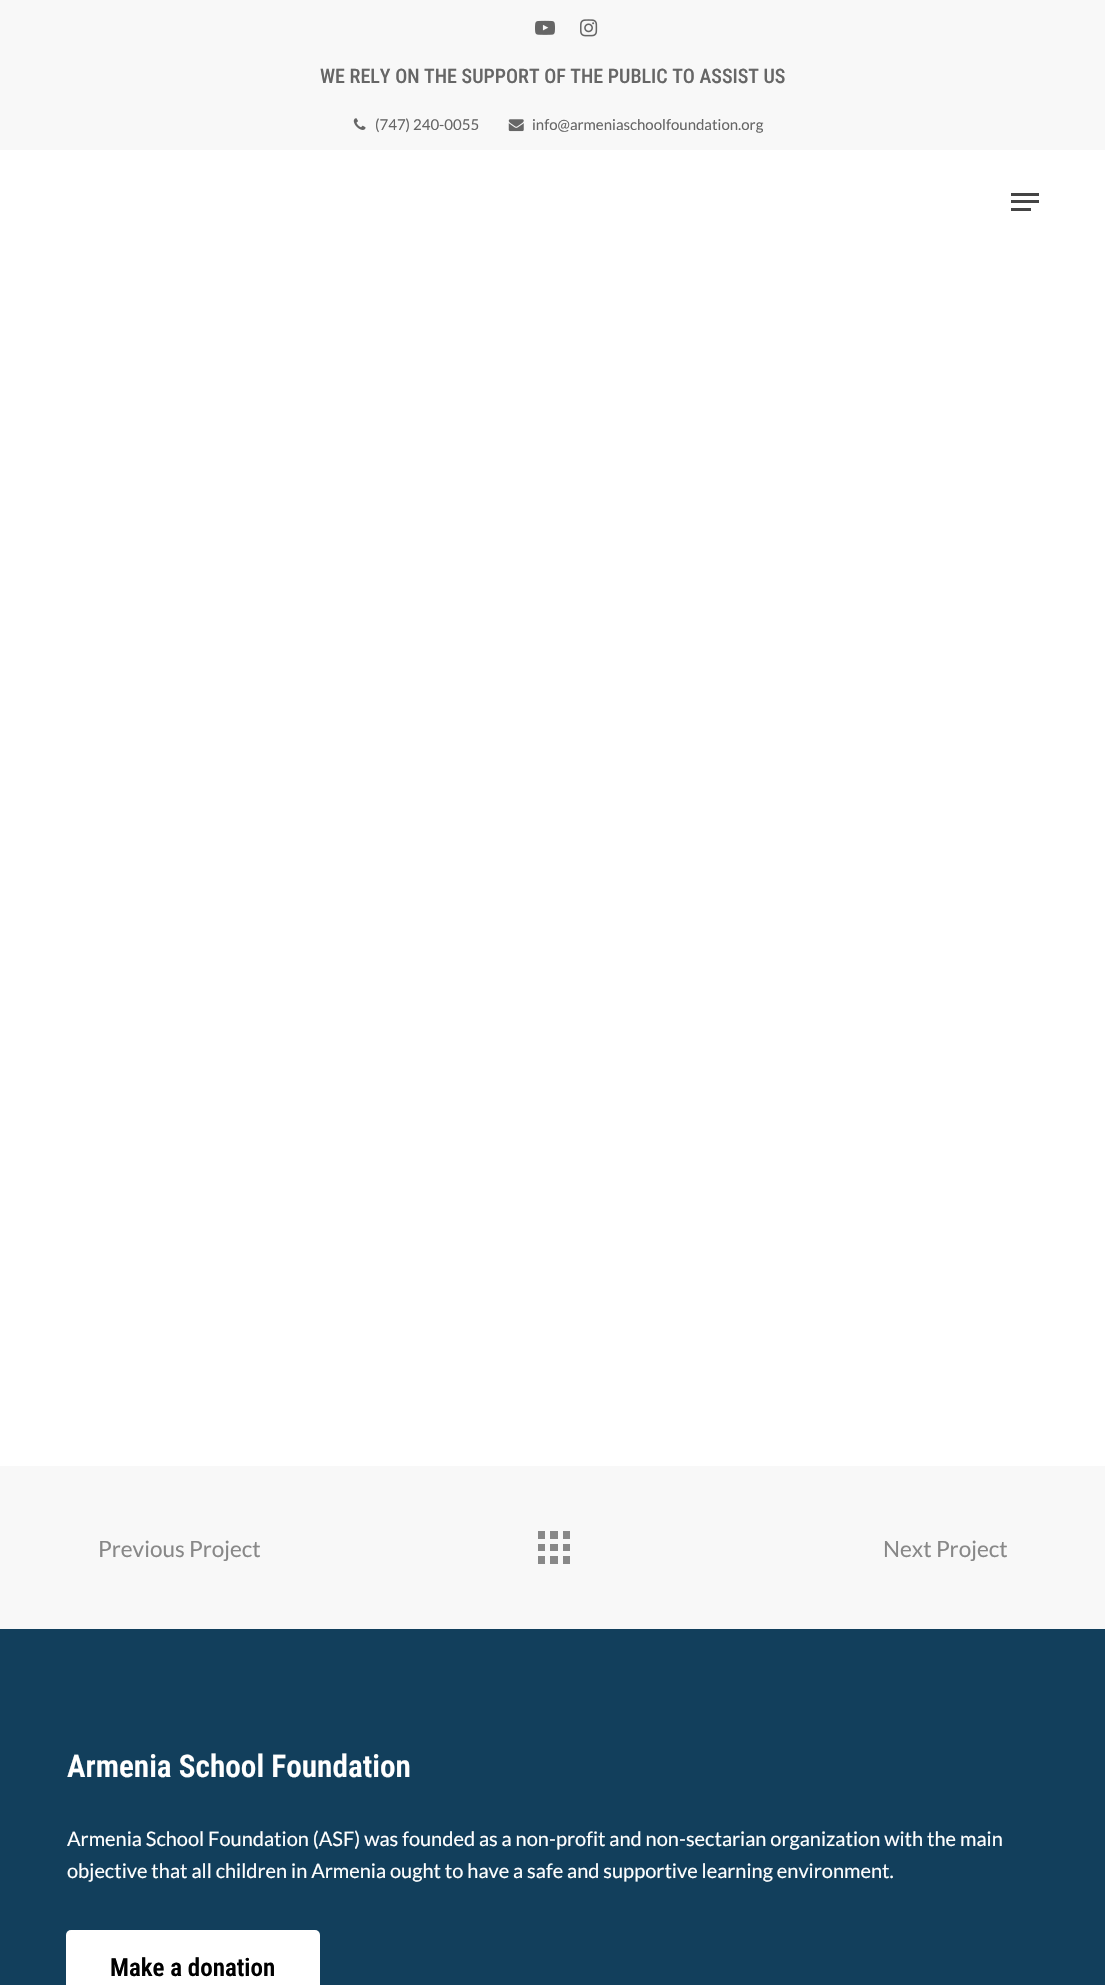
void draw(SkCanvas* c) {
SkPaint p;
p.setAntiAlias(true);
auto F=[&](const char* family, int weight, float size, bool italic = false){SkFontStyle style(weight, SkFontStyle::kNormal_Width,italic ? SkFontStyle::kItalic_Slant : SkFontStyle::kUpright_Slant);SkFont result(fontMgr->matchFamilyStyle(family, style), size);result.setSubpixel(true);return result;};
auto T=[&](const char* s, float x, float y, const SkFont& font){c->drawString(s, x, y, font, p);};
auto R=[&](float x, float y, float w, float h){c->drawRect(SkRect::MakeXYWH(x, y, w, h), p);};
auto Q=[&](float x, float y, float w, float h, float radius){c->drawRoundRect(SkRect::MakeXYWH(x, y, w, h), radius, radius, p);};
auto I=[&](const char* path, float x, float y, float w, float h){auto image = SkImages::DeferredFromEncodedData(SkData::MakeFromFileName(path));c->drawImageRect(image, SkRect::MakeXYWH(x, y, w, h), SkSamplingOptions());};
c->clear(0xffffffff);
p.setColor(0xfff8f8f8);
R(0,0,1105,150);
I("1.png",535,20,20,15);
I("2.png",580,19,18,18);
auto f1 = F("Roboto Condensed",500,20);
p.setColor(0xff666666);
T("WE RELY ON THE SUPPORT OF THE PUBLIC TO ASSIST US",320,83,f1);
I("3.png",353,118,13,12);
auto f2 = F("Lato",400,15);
T("(747) 240-0055",375,130,f2);
I("4.png",508,119,16,13);
T("info@armeniaschoolfoundation.org",532,130,f2);
p.setColor(0xff444444);
R(1011,193,28,3);
R(1011,208,20,3);
R(1011,200,28,3);
p.setColor(0xfff8f8f8);
R(0,1466,1105,163);
p.setColor(0xff888888);
R(563,1556,7,8);
R(550,1556,8,8);
R(538,1531,7,8);
R(550,1531,8,8);
R(563,1531,7,8);
R(563,1544,7,7);
R(538,1556,7,8);
R(538,1544,7,7);
R(550,1544,8,7);
auto f3 = F("Lato",400,22.5);
T("Previous Project",98,1557,f3);
T("Next Project",883,1557,f3);
p.setColor(0xff123f5c);
R(0,1629,1105,356);
auto f4 = F("Roboto Condensed",600,31.25);
p.setColor(0xffffffff);
T("Armenia School Foundation",67,1777,f4);
auto f5 = F("Lato",400,20);
T("Armenia School Foundation (ASF) was founded as a non-profit and non-sectarian organization with the main",67,1846,f5);
T("objective that all children in Armenia ought to have a safe and supportive learning environment.",67,1878,f5);
Q(66,1930,254,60,5);
auto f6 = F("Roboto Condensed",600,25);
p.setColor(0xff000000);
T("Make a donation",110,1976,f6);
}
